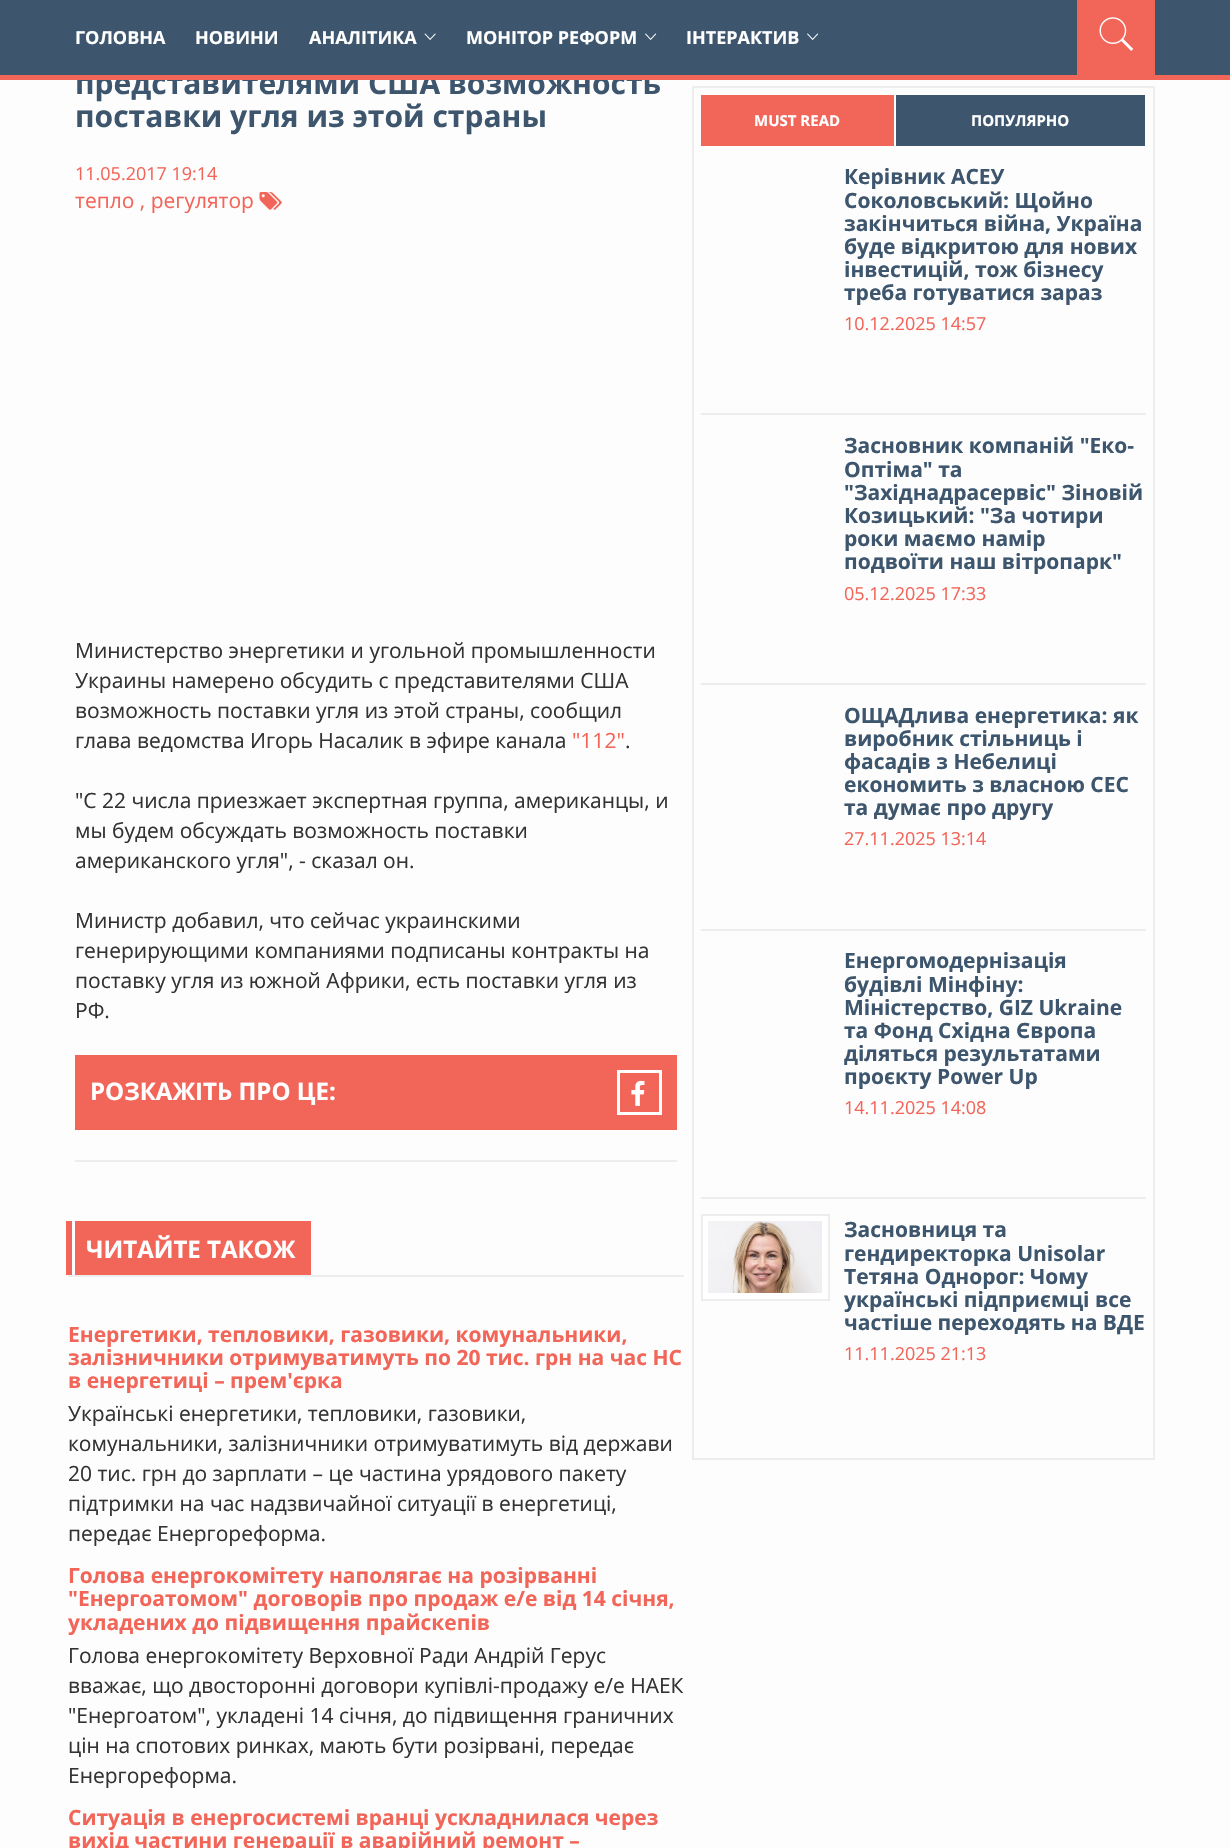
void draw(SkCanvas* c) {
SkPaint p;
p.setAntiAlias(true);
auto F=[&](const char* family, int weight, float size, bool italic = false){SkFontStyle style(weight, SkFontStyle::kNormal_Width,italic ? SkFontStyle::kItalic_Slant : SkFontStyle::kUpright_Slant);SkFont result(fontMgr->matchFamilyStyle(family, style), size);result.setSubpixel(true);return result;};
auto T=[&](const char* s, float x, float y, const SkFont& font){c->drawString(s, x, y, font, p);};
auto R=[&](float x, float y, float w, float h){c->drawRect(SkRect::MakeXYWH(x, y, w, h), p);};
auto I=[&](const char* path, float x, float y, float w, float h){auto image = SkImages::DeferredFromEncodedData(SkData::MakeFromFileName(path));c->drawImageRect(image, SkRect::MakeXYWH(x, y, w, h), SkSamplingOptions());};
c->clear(0xfffdfdfd);
p.setColor(0xff3d566e);
R(0,0,1230,75);
auto f1 = F("Open Sans",700,30);
T("представителями США возможность",75,94,f1);
p.setColor(0xfff26659);
R(0,75,1230,5);
auto f2 = F("Open Sans",700,18);
p.setColor(0xffffffff);
T("ГОЛОВНА",75,44,f2);
T("НОВИНИ",195,44,f2);
T("АНАЛІТИКА",309,44,f2);
I("1.png",424,33,12,7);
T("МОНІТОР РЕФОРМ",466,44,f2);
I("2.png",645,33,12,7);
T("ІНТЕРАКТИВ",686,44,f2);
I("2.png",807,33,12,7);
p.setColor(0xfff26659);
R(1077,0,78,75);
I("3.png",1099,17,35,34);
p.setColor(0xff3d566e);
T("поставки угля из этой страны",75,127,f1);
auto f3 = F("Open Sans",400,18);
p.setColor(0xfff26659);
T("11.05.2017 19:14",75,180,f3);
auto f4 = F("Open Sans",400,21);
T("тепло , регулятор",75,208,f4);
I("4.png",259,192,23,18);
p.setColor(0xff333333);
T("Министерство энергетики и угольной промышленности",75,658,f4);
T("Украины намерено обсудить с представителями США",75,688,f4);
T("возможность поставки угля из этой страны, сообщил",75,718,f4);
T("глава ведомства Игорь Насалик в эфире канала",75,748,f4);
p.setColor(0xfff26659);
T("\"112\"",572,748,f4);
p.setColor(0xff333333);
T(".",625,748,f4);
T("\"С 22 числа приезжает экспертная группа, американцы, и",75,808,f4);
T("мы будем обсуждать возможность поставки",75,838,f4);
T("американского угля\", - сказал он.",75,868,f4);
T("Министр добавил, что сейчас украинскими",75,928,f4);
T("генерирующими компаниями подписаны контракты на",75,958,f4);
T("поставку угля из южной Африки, есть поставки угля из",75,988,f4);
T("РФ.",75,1018,f4);
p.setColor(0xfff26659);
R(75,1055,602,75);
auto f5 = F("Open Sans",700,24);
p.setColor(0xffffffff);
T("РОЗКАЖІТЬ ПРО ЦЕ:",90,1100,f5);
p.setStroke(true);
p.setStrokeWidth(3);
c->drawRect(SkRect::MakeXYWH(618.5,1071.5,42,42),p);
I("5.png",631,1080,14,26);
p.setStroke(false);
p.setColor(0xffededed);
R(75,1160,602,2);
R(68,1275,616,2);
p.setColor(0xfff26659);
R(75,1221,236,54);
R(66,1221,6,54);
p.setColor(0xffffffff);
T("ЧИТАЙТЕ ТАКОЖ",86,1258,f5);
auto f6 = F("Open Sans",700,21);
p.setColor(0xfff26659);
T("Енергетики, тепловики, газовики, комунальники,",68,1342,f6);
T("залізничники отримуватимуть по 20 тис. грн на час НС",68,1365,f6);
T("в енергетиці – прем'єрка",68,1388,f6);
p.setColor(0xff333333);
T("Українські енергетики, тепловики, газовики,",68,1421,f4);
T("комунальники, залізничники отримуватимуть від держави",68,1451,f4);
T("20 тис. грн до зарплати – це частина урядового пакету",68,1481,f4);
T("підтримки на час надзвичайної ситуації в енергетиці,",68,1511,f4);
T("передає Енергореформа.",68,1541,f4);
p.setColor(0xfff26659);
T("Голова енергокомітету наполягає на розірванні",68,1583,f6);
T("\"Енергоатомом\" договорів про продаж е/е від 14 січня,",68,1606,f6);
T("укладених до підвищення прайскепів",68,1630,f6);
p.setColor(0xff333333);
T("Голова енергокомітету Верховної Ради Андрій Герус",68,1663,f4);
T("вважає, що двосторонні договори купівлі-продажу е/е НАЕК",68,1693,f4);
T("\"Енергоатом\", укладені 14 січня, до підвищення граничних",68,1723,f4);
T("цін на спотових ринках, мають бути розірвані, передає",68,1753,f4);
T("Енергореформа.",68,1783,f4);
p.setColor(0xfff26659);
T("Ситуація в енергосистемі вранці ускладнилася через",68,1825,f6);
T("вихід частини генерації в аварійний ремонт –",68,1848,f6);
p.setStroke(true);
p.setStrokeWidth(2);
p.setColor(0xffededed);
c->drawRect(SkRect::MakeXYWH(693,87,461,1372),p);
p.setStroke(false);
p.setColor(0xfff26659);
R(701,95,193,51);
auto f7 = F("Open Sans",700,15);
p.setColor(0xffffffff);
T("MUST READ",754,126,f7);
p.setColor(0xff3d566e);
R(896,95,249,51);
p.setColor(0xffffffff);
T("ПОПУЛЯРНО",971,126,f7);
p.setColor(0xffededed);
R(701,413,445,2);
p.setColor(0xff3d566e);
T("Керівник АСЕУ",844,184,f6);
T("Соколовський: Щойно",844,208,f6);
T("закінчиться війна, Україна",844,231,f6);
T("буде відкритою для нових",844,254,f6);
T("інвестицій, тож бізнесу",844,277,f6);
T("треба готуватися зараз",844,300,f6);
p.setColor(0xfff26659);
T("10.12.2025 14:57",844,330,f3);
p.setColor(0xffededed);
R(701,683,445,2);
p.setColor(0xff3d566e);
T("Засновник компаній \"Еко-",844,453,f6);
T("Оптіма\" та",844,477,f6);
T("\"Західнадрасервіс\" Зіновій",844,500,f6);
T("Козицький: \"За чотири",844,523,f6);
T("роки маємо намір",844,546,f6);
T("подвоїти наш вітропарк\"",844,569,f6);
p.setColor(0xfff26659);
T("05.12.2025 17:33",844,600,f3);
p.setColor(0xffededed);
R(701,929,445,2);
p.setColor(0xff3d566e);
T("ОЩАДлива енергетика: як",844,723,f6);
T("виробник стільниць і",844,746,f6);
T("фасадів з Небелиці",844,769,f6);
T("економить з власною СЕС",844,792,f6);
T("та думає про другу",844,815,f6);
p.setColor(0xfff26659);
T("27.11.2025 13:14",844,845,f3);
p.setColor(0xffededed);
R(701,1197,445,2);
p.setColor(0xff3d566e);
T("Енергомодернізація",844,968,f6);
T("будівлі Мінфіну:",844,992,f6);
T("Міністерство, GIZ Ukraine",844,1015,f6);
T("та Фонд Східна Європа",844,1038,f6);
T("діляться результатами",844,1061,f6);
T("проєкту Power Up",844,1084,f6);
p.setColor(0xfff26659);
T("14.11.2025 14:08",844,1114,f3);
I("6.png",703,1216,125,83);
p.setStroke(true);
p.setColor(0xffededed);
c->drawRect(SkRect::MakeXYWH(702,1215,127,85),p);
I("7.png",734,1221,61,72);
p.setStroke(false);
p.setColor(0xff3d566e);
T("Засновниця та",844,1237,f6);
T("гендиректорка Unisolar",844,1261,f6);
T("Тетяна Однорог: Чому",844,1284,f6);
T("українські підприємці все",844,1307,f6);
T("частіше переходять на ВДЕ",844,1330,f6);
p.setColor(0xfff26659);
T("11.11.2025 21:13",844,1360,f3);
}
